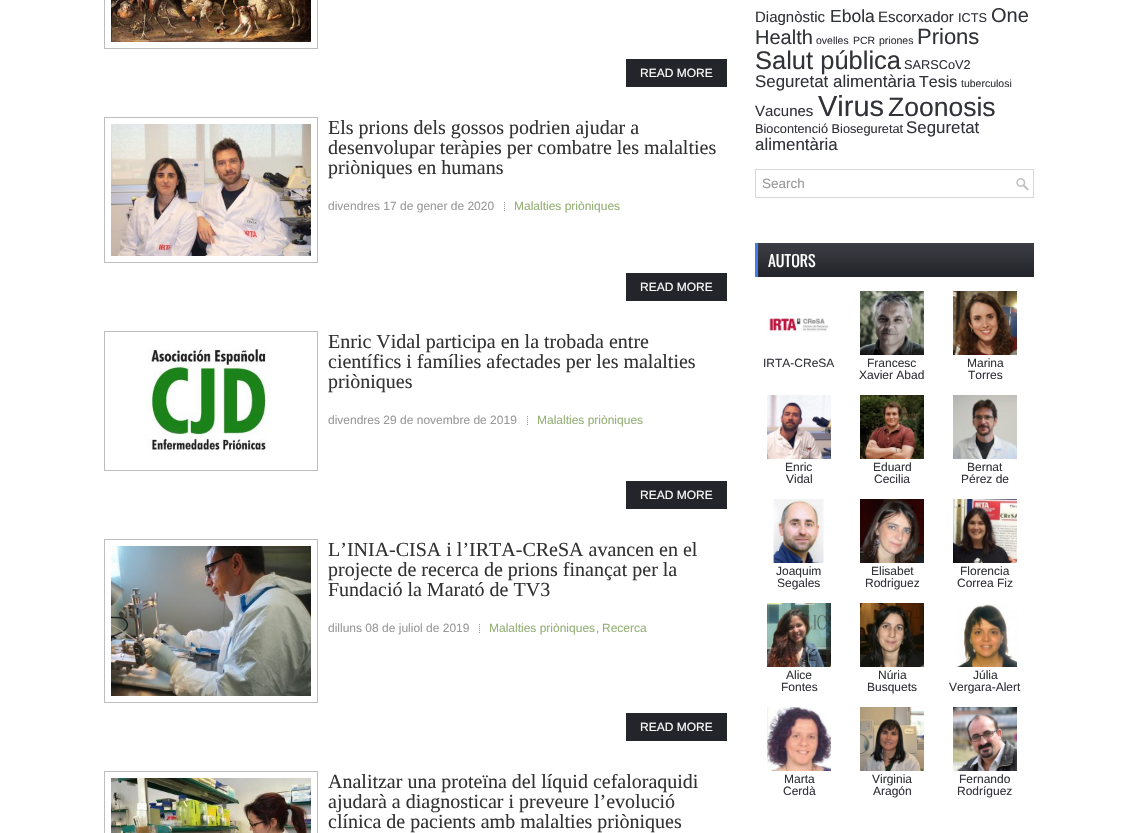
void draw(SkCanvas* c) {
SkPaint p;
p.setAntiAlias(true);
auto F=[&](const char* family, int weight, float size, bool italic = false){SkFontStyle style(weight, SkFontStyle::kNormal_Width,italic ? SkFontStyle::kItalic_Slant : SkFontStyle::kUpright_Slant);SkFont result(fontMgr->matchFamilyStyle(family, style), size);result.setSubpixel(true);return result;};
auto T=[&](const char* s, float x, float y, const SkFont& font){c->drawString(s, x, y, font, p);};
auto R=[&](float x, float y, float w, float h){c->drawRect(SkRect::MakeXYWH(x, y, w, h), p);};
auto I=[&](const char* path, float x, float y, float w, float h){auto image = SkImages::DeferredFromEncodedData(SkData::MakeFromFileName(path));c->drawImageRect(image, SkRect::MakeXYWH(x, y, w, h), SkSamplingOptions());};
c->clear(0xffffffff);
p.setStroke(true);
p.setStrokeWidth(1);
p.setColor(0xffbdbdbd);
c->drawRect(SkRect::MakeXYWH(104.5,-.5,213,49),p);
I("1.png",111,0,200,42);
p.setStroke(false);
p.setColor(0xff24252b);
R(626,59,101,28);
auto f1 = F("Liberation Sans",400,12);
p.setColor(0xffffffff);
T("READ MORE",640,77,f1);
p.setStroke(true);
p.setColor(0xffbdbdbd);
c->drawRect(SkRect::MakeXYWH(104.5,117.5,213,145),p);
I("2.png",111,124,200,132);
auto f2 = F("Liberation Serif",400,20);
p.setStroke(false);
p.setColor(0xff333333);
T("Els prions dels gossos podrien ajudar a",328,134,f2);
T("desenvolupar teràpies per combatre les malalties",328,154,f2);
T("priòniques en humans",328,174,f2);
p.setColor(0xff999999);
T("divendres 17 de gener de 2020",328,210,f1);
I("3.png",504,202,1,9);
p.setColor(0xff95b176);
T("Malalties priòniques",514,210,f1);
p.setColor(0xff24252b);
R(626,273,101,28);
p.setColor(0xffffffff);
T("READ MORE",640,291,f1);
p.setStroke(true);
p.setColor(0xffbdbdbd);
c->drawRect(SkRect::MakeXYWH(104.5,331.5,213,139),p);
I("4.png",144,348,127,102);
p.setStroke(false);
p.setColor(0xff333333);
T("Enric Vidal participa en la trobada entre",328,348,f2);
T("científics i famílies afectades per les malalties",328,368,f2);
T("priòniques",328,388,f2);
p.setColor(0xff999999);
T("divendres 29 de novembre de 2019",328,424,f1);
I("3.png",527,416,1,9);
p.setColor(0xff95b176);
T("Malalties priòniques",537,424,f1);
p.setColor(0xff24252b);
R(626,481,101,28);
p.setColor(0xffffffff);
T("READ MORE",640,499,f1);
p.setStroke(true);
p.setColor(0xffbdbdbd);
c->drawRect(SkRect::MakeXYWH(104.5,539.5,213,163),p);
I("5.png",111,546,200,150);
p.setStroke(false);
p.setColor(0xff333333);
T("L’INIA-CISA i l’IRTA-CReSA avancen en el",328,556,f2);
T("projecte de recerca de prions finançat per la",328,576,f2);
T("Fundació la Marató de TV3",328,596,f2);
p.setColor(0xff999999);
T("dilluns 08 de juliol de 2019",328,632,f1);
I("3.png",479,624,1,9);
p.setColor(0xff95b176);
T("Malalties priòniques",489,632,f1);
p.setColor(0xff999999);
T(",",596,632,f1);
p.setColor(0xff95b176);
T("Recerca",602,632,f1);
p.setColor(0xff24252b);
R(626,713,101,28);
p.setColor(0xffffffff);
T("READ MORE",640,731,f1);
p.setStroke(true);
p.setColor(0xffbdbdbd);
c->drawRect(SkRect::MakeXYWH(104.5,771.5,213,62),p);
I("6.png",111,778,200,55);
p.setStroke(false);
p.setColor(0xff333333);
T("Analitzar una proteïna del líquid cefaloraquidi",328,788,f2);
T("ajudarà a diagnosticar i preveure l’evolució",328,808,f2);
T("clínica de pacients amb malalties priòniques",328,828,f2);
auto f3 = F("Liberation Sans",400,15);
p.setColor(0xff323339);
T("Diagnòstic",755,22,f3);
auto f4 = F("Liberation Sans",400,17.5);
T("Ebola",830,22,f4);
T("Escorxador",878,22,f3);
auto f5 = F("Liberation Sans",400,12.75);
T("ICTS",958,22,f5);
auto f6 = F("Liberation Sans",400,20);
T("One",991,22,f6);
T("Health",755,44,f6);
auto f7 = F("Liberation Sans",400,10.5);
T("ovelles",816,44,f7);
T("PCR",853,44,f7);
T("priones",879,44,f7);
auto f8 = F("Liberation Sans",400,22);
T("Prions",917,44,f8);
auto f9 = F("Liberation Sans",400,25.5);
T("Salut pública",755,69,f9);
T("SARSCoV2",904,69,f5);
auto f10 = F("Liberation Sans",400,16.9);
T("Seguretat alimentària",755,87,f10);
auto f11 = F("Liberation Sans",400,16);
T("Tesis",919,87,f11);
T("tuberculosi",961,87,f7);
T("Vacunes",755,116,f3);
auto f12 = F("Liberation Sans",400,29);
T("Virus",818,116,f12);
auto f13 = F("Liberation Sans",400,26.5);
T("Zoonosis",888,116,f13);
T("Biocontenció Bioseguretat",755,133,f5);
T("Seguretat",906,133,f10);
T("alimentària",755,150,f10);
I("7.png",1016,178,13,13);
p.setStroke(true);
p.setColor(0xffd8d8d8);
c->drawRect(SkRect::MakeXYWH(755.5,169.5,278,28),p);
auto f14 = F("Liberation Sans",400,13.5);
p.setStroke(false);
p.setColor(0xff999999);
T("Search",762,188,f14);
I("8.png",758,243,276,34);
p.setColor(0xff467bec);
R(755,243,3,34);
auto f15 = F("Oswald",400,16);
p.setColor(0xffffffff);
T("AUTORS",768,267,f15);
I("9.png",767,318,62,14);
p.setColor(0xff323339);
T("IRTA-CReSA",763,367,f1);
I("10.png",860,291,64,64);
T("Francesc",867,367,f1);
T("Xavier Abad",859,379,f1);
I("11.png",953,291,64,64);
T("Marina",967,367,f1);
T("Torres",968,379,f1);
I("12.png",767,395,64,64);
T("Enric",785,471,f1);
T("Vidal",786,483,f1);
I("13.png",860,395,64,64);
T("Eduard",873,471,f1);
T("Cecilia",874,483,f1);
I("14.png",953,395,64,64);
T("Bernat",967,471,f1);
T("Pérez de",961,483,f1);
I("15.png",773,499,51,64);
T("Joaquim",776,575,f1);
T("Segales",777,587,f1);
I("16.png",860,499,64,64);
T("Elisabet",871,575,f1);
T("Rodriguez",865,587,f1);
I("17.png",953,499,64,64);
T("Florencia",960,575,f1);
T("Correa Fiz",957,587,f1);
I("18.png",767,603,64,64);
T("Alice",786,679,f1);
T("Fontes",781,691,f1);
I("19.png",860,603,64,64);
T("Núria",878,679,f1);
T("Busquets",867,691,f1);
I("20.png",956,603,61,64);
T("Júlia",973,679,f1);
T("Vergara-Alert",949,691,f1);
I("21.png",767,707,64,64);
T("Marta",784,783,f1);
T("Cerdà",783,795,f1);
I("22.png",860,707,64,64);
T("Virginia",872,783,f1);
T("Aragón",873,795,f1);
I("23.png",953,707,64,64);
T("Fernando",959,783,f1);
T("Rodríguez",957,795,f1);
}
